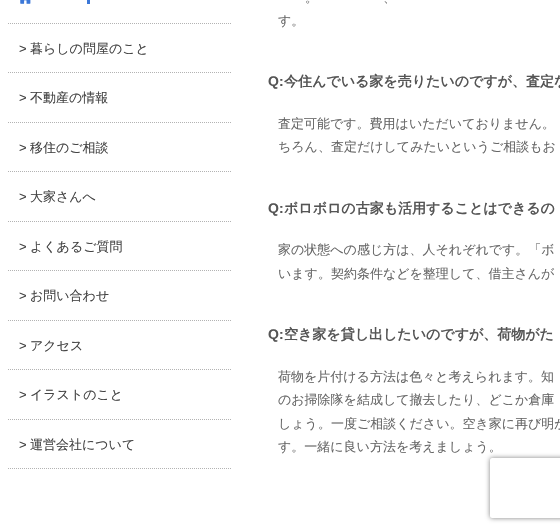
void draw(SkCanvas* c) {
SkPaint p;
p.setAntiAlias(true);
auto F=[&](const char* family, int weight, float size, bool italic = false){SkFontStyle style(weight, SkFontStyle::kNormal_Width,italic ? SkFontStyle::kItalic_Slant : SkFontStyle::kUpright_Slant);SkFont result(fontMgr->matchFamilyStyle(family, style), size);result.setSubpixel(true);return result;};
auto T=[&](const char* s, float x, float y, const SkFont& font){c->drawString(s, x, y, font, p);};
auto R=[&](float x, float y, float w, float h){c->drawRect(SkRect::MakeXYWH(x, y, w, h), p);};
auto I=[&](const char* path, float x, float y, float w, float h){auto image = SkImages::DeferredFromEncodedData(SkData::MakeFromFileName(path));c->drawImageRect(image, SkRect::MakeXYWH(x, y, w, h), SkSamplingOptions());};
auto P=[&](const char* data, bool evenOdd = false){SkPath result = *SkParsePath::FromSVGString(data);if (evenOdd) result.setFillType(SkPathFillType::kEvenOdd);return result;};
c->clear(0xffffffff);
I("1.png",20,0,11,4);
p.setColor(0xff3c78d8);
R(87,0,3,4);
I("2.png",8,23,223,1);
auto f1 = F("Liberation Sans",400,13);
p.setColor(0xff434343);
T(">",19,53,f1);
auto f2 = F("WenQuanYi Zen Hei",500,13);
T("暮らしの問屋のこと",30,53,f2);
I("2.png",8,72,223,1);
T(">",19,102,f1);
T("不動産の情報",30,102,f2);
I("2.png",8,122,223,1);
T(">",19,152,f1);
T("移住のご相談",30,152,f2);
I("2.png",8,171,223,1);
T(">",19,201,f1);
T("大家さんへ",30,201,f2);
I("2.png",8,221,223,1);
T(">",19,251,f1);
T("よくあるご質問",30,251,f2);
I("2.png",8,270,223,1);
T(">",19,300,f1);
T("お問い合わせ",30,300,f2);
I("2.png",8,320,223,1);
T(">",19,350,f1);
T("アクセス",30,350,f2);
I("2.png",8,369,223,1);
T(">",19,399,f1);
T("イラストのこと",30,399,f2);
I("2.png",8,419,223,1);
T(">",19,449,f1);
T("運営会社について",30,449,f2);
I("2.png",8,468,223,1);
p.setColor(0xff666666);
T("。",305,2,f2);
T("、",383,2,f2);
T("す。",278,25,f2);
auto f3 = F("Liberation Sans",700,14);
p.setColor(0xff555555);
T("Q:",268,86,f3);
auto f4 = F("WenQuanYi Zen Hei",700,14);
T("今住んでいる家を売りたいのですが、査定な",284,86,f4);
p.setColor(0xff666666);
T("査定可能です。費用はいただいておりません。",278,128,f2);
T("ちろん、査定だけしてみたいというご相談もお",278,151,f2);
p.setColor(0xff555555);
T("Q:",268,213,f3);
T("ボロボロの古家も活用することはできるの",284,213,f4);
p.setColor(0xff666666);
T("家の状態への感じ方は、人それぞれです。「ボ",278,254,f2);
T("います。契約条件などを整理して、借主さんが",278,278,f2);
p.setColor(0xff555555);
T("Q:",268,339,f3);
T("空き家を貸し出したいのですが、荷物がた",284,339,f4);
p.setColor(0xff666666);
T("荷物を片付ける方法は色々と考えられます。知",278,381,f2);
T("のお掃除隊を結成して撤去したり、どこか倉庫",278,404,f2);
T("しょう。一度ご相談ください。空き家に再び明か",278,428,f2);
T("す。一緒に良い方法を考えましょう。",278,451,f2);
c->save();
c->clipPath(P("M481 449h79v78h-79zm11 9h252c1 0 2 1 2 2v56c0 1-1 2-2 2h-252c-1 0-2-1-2-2v-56c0-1 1-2 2-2z",true),true);
p.setColor(0xff808080);
p.setMaskFilter(SkMaskFilter::MakeBlur(kNormal_SkBlurStyle, 2.5));
c->drawRoundRect(SkRect::MakeXYWH(490,458,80,60),2,2,p);
p.setMaskFilter(nullptr);
c->restore();
}
